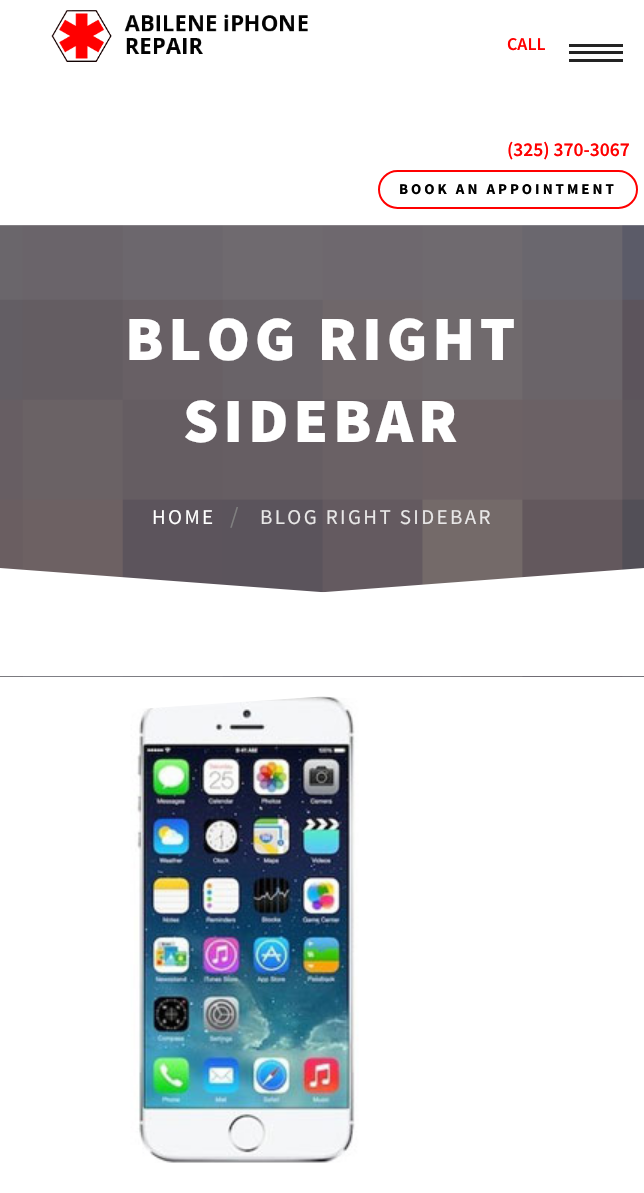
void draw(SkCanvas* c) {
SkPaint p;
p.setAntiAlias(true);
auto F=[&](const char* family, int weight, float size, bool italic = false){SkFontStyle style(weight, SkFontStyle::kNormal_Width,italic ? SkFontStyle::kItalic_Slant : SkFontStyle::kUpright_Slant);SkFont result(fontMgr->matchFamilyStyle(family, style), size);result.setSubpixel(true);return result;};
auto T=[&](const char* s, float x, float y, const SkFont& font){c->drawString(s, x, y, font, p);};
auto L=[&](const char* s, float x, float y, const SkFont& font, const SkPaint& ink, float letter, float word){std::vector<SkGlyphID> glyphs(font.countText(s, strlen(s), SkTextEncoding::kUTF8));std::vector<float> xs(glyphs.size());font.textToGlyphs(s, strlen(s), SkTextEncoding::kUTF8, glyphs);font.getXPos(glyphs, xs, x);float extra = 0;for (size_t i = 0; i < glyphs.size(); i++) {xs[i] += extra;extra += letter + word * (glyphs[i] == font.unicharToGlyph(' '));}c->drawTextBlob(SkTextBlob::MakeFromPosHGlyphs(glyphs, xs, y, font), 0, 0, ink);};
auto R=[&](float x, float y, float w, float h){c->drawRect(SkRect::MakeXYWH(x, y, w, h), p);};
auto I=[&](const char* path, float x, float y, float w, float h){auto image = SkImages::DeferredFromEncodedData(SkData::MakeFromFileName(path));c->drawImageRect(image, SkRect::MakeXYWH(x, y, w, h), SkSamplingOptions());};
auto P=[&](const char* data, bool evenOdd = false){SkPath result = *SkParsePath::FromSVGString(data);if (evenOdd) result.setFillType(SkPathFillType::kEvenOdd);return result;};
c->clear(0xffffffff);
p.setColor(0xfff2f2f2);
R(0,676,644,1);
I("2.png",0,225,644,452);
I("3.png",23,676,438,487);
p.setColor(0xa6444a59);
R(0,225,644,452);
p.setColor(0x2bffffff);
R(0,225,644,1);
I("1.png",51,10,257,52);
auto f1 = F("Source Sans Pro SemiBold",600,18);
p.setColor(0xffff0000);
T("CALL",507,50,f1);
auto f2 = F("Source Sans Pro SemiBold",600,19.5);
T("(325) 370-3067",507,156,f2);
p.setColor(0xff232323);
R(569,51,54,3);
R(569,44,54,3);
R(569,59,54,3);
p.setStroke(true);
p.setStrokeWidth(2);
p.setColor(0xffff0000);
c->drawRoundRect(SkRect::MakeXYWH(379,171,258,37),18.5,18.5,p);
auto f3 = F("Source Sans Pro",700,15);
p.setStroke(false);
p.setColor(0xff000000);
L("BOOK AN APPOINTMENT",399,194,f3,p,3,0);
auto f4 = F("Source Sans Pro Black",900,63);
p.setColor(0xffffffff);
L("BLOG RIGHT",125,360,f4,p,4.75,0);
L("SIDEBAR",183,442,f4,p,4.75,0);
auto f5 = F("Source Sans Pro",400,21);
L("HOME",152,524,f5,p,2.4,0);
auto f6 = F("Source Sans Pro",400,24);
p.setColor(0xff808080);
L("/",230,524,f6,p,2.4,0);
p.setColor(0xffe8e7e7);
L("BLOG RIGHT SIDEBAR",260,524,f5,p,2.4,0);
p.setColor(0xffffffff);
c->drawPath(P("M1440 676h-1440v-108z"),p);
c->drawPath(P("M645 676h-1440l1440-108z"),p);
c->save();
c->clipRect(SkRect::MakeXYWH(23,677,600,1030));
c->drawPath(P("M22 676h600l-600 41z"),p);
c->drawPath(P("M22 676h600v41z"),p);
c->restore();
}
